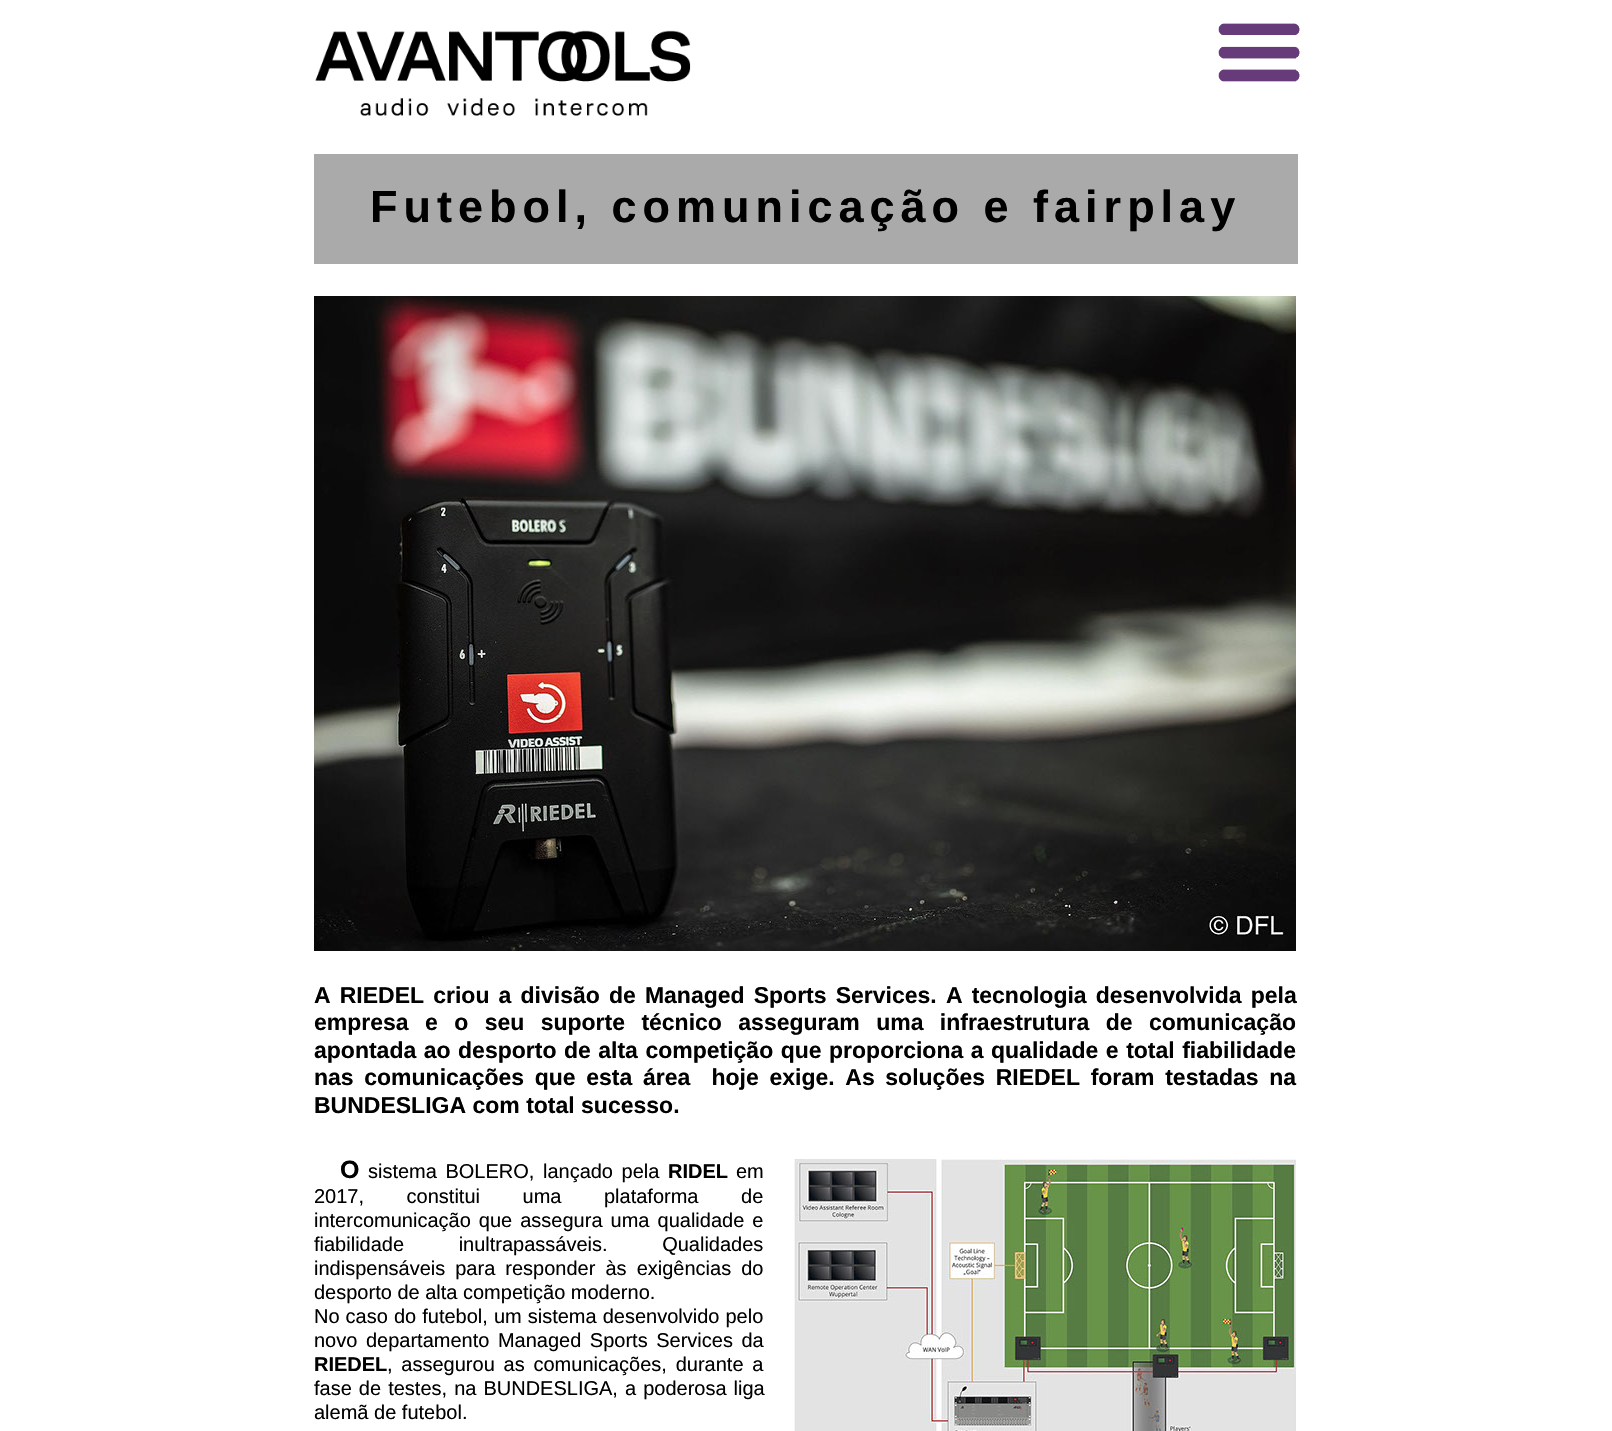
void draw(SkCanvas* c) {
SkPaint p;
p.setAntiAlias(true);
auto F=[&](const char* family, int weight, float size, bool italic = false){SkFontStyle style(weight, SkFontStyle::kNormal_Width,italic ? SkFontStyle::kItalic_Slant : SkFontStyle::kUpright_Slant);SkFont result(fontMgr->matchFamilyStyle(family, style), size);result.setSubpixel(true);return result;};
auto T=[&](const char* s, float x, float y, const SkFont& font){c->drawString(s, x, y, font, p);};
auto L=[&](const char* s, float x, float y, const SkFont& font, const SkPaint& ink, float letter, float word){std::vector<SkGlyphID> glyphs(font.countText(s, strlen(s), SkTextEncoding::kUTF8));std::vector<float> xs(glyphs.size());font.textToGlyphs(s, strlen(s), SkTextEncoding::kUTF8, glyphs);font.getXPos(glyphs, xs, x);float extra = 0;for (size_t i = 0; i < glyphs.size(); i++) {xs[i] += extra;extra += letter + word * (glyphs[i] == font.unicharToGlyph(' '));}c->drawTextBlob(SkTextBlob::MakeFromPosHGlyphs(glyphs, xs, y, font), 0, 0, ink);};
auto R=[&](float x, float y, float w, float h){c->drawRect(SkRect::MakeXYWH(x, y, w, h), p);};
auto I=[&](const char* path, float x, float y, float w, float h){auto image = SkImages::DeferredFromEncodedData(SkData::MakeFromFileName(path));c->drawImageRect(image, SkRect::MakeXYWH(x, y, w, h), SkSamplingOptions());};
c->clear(0xffffffff);
I("1.png",315,30,376,86);
I("2.png",1218,23,82,59);
p.setColor(0xffaaaaaa);
R(314,154,984,110);
auto f1 = F("Liberation Sans",700,45);
p.setColor(0xff000000);
L("Futebol, comunicação e fairplay",370,222,f1,p,6,0);
I("3.png",314,296,982,655);
auto f2 = F("Liberation Sans",700,23);
L("A RIEDEL criou a divisão de Managed Sports Services. A tecnologia desenvolvida pela",314,1003,f2,p,0,2.75);
L("empresa e o seu suporte técnico asseguram uma infraestrutura de comunicação",314,1030,f2,p,0,10);
L("apontada ao desporto de alta competição que proporciona a qualidade e total fiabilidade",314,1058,f2,p,0,1.1);
L("nas comunicações que esta área  hoje exige. As soluções RIEDEL foram testadas na",314,1085,f2,p,0,4.25);
T("BUNDESLIGA com total sucesso.",314,1113,f2);
auto f3 = F("Liberation Sans",700,25);
T("O",340,1178,f3);
auto f4 = F("Liberation Sans",400,20);
L("sistema BOLERO, lançado pela",368,1178,f4,p,0,3);
auto f5 = F("Liberation Sans",700,20);
T("RIDEL",668,1178,f5);
T("em",736,1178,f4);
L("2017, constitui uma plataforma de",314,1203,f4,p,0,37);
L("intercomunicação que assegura uma qualidade e",314,1227,f4,p,0,2.5);
L("fiabilidade inultrapassáveis. Qualidades",314,1251,f4,p,0,49);
L("indispensáveis para responder às exigências do",314,1275,f4,p,0,4.5);
T("desporto de alta competição moderno.",314,1299,f4);
L("No caso do futebol, um sistema desenvolvido pelo",314,1323,f4,p,0,.5);
L("novo departamento Managed Sports Services da",314,1347,f4,p,0,3);
T("RIEDEL",314,1371,f5);
L(", assegurou as comunicações, durante a",387,1371,f4,p,0,3.25);
L("fase de testes, na BUNDESLIGA, a poderosa liga",314,1395,f4,p,0,1.5);
T("alemã de futebol.",314,1419,f4);
I("4.png",794,1159,502,272);
}
